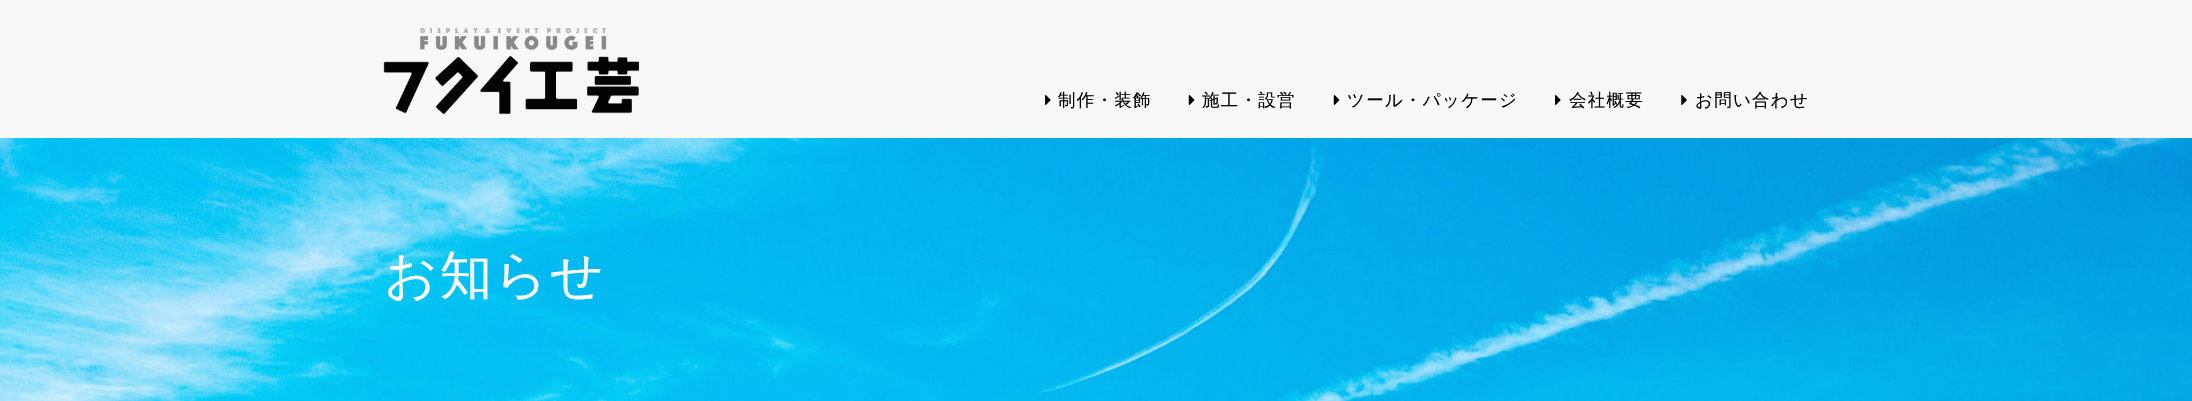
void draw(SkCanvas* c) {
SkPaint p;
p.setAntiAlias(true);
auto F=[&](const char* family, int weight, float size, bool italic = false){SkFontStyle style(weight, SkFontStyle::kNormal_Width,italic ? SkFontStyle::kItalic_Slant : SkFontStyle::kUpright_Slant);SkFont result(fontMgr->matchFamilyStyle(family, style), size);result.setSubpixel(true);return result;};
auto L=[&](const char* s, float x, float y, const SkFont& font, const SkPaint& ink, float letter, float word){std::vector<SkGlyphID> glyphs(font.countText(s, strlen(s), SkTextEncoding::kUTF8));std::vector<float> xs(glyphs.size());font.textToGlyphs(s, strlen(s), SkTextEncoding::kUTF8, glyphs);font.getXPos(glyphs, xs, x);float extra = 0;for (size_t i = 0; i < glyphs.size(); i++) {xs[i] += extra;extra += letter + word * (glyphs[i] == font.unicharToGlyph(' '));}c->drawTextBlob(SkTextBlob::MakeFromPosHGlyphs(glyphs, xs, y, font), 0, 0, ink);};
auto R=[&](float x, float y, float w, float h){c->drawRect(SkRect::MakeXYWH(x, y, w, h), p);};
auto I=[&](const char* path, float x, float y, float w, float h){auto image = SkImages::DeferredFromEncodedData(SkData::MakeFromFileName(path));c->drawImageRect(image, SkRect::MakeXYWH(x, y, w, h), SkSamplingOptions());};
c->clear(0xffffffff);
p.setColor(0xfff8f8f8);
R(0,0,2192,138);
I("1.png",383,28,256,86);
I("2.png",1045,95,6,10);
auto f1 = F("WenQuanYi Zen Hei",500,17.5);
p.setColor(0xff000000);
L("制作・装飾",1058,106,f1,p,1.25,0);
I("3.png",1188,95,7,10);
L("施工・設営",1202,106,f1,p,1.25,0);
I("3.png",1333,95,7,10);
L("ツール・パッケージ",1347,106,f1,p,1.25,0);
I("2.png",1555,95,6,10);
L("会社概要",1569,106,f1,p,1.25,0);
I("4.png",1681,95,6,10);
L("お問い合わせ",1695,106,f1,p,1.25,0);
I("5.png",0,138,2192,263);
auto f2 = F("WenQuanYi Zen Hei",500,52.5);
p.setColor(0xffffffff);
L("お知らせ",384,293,f2,p,2,0);
}
